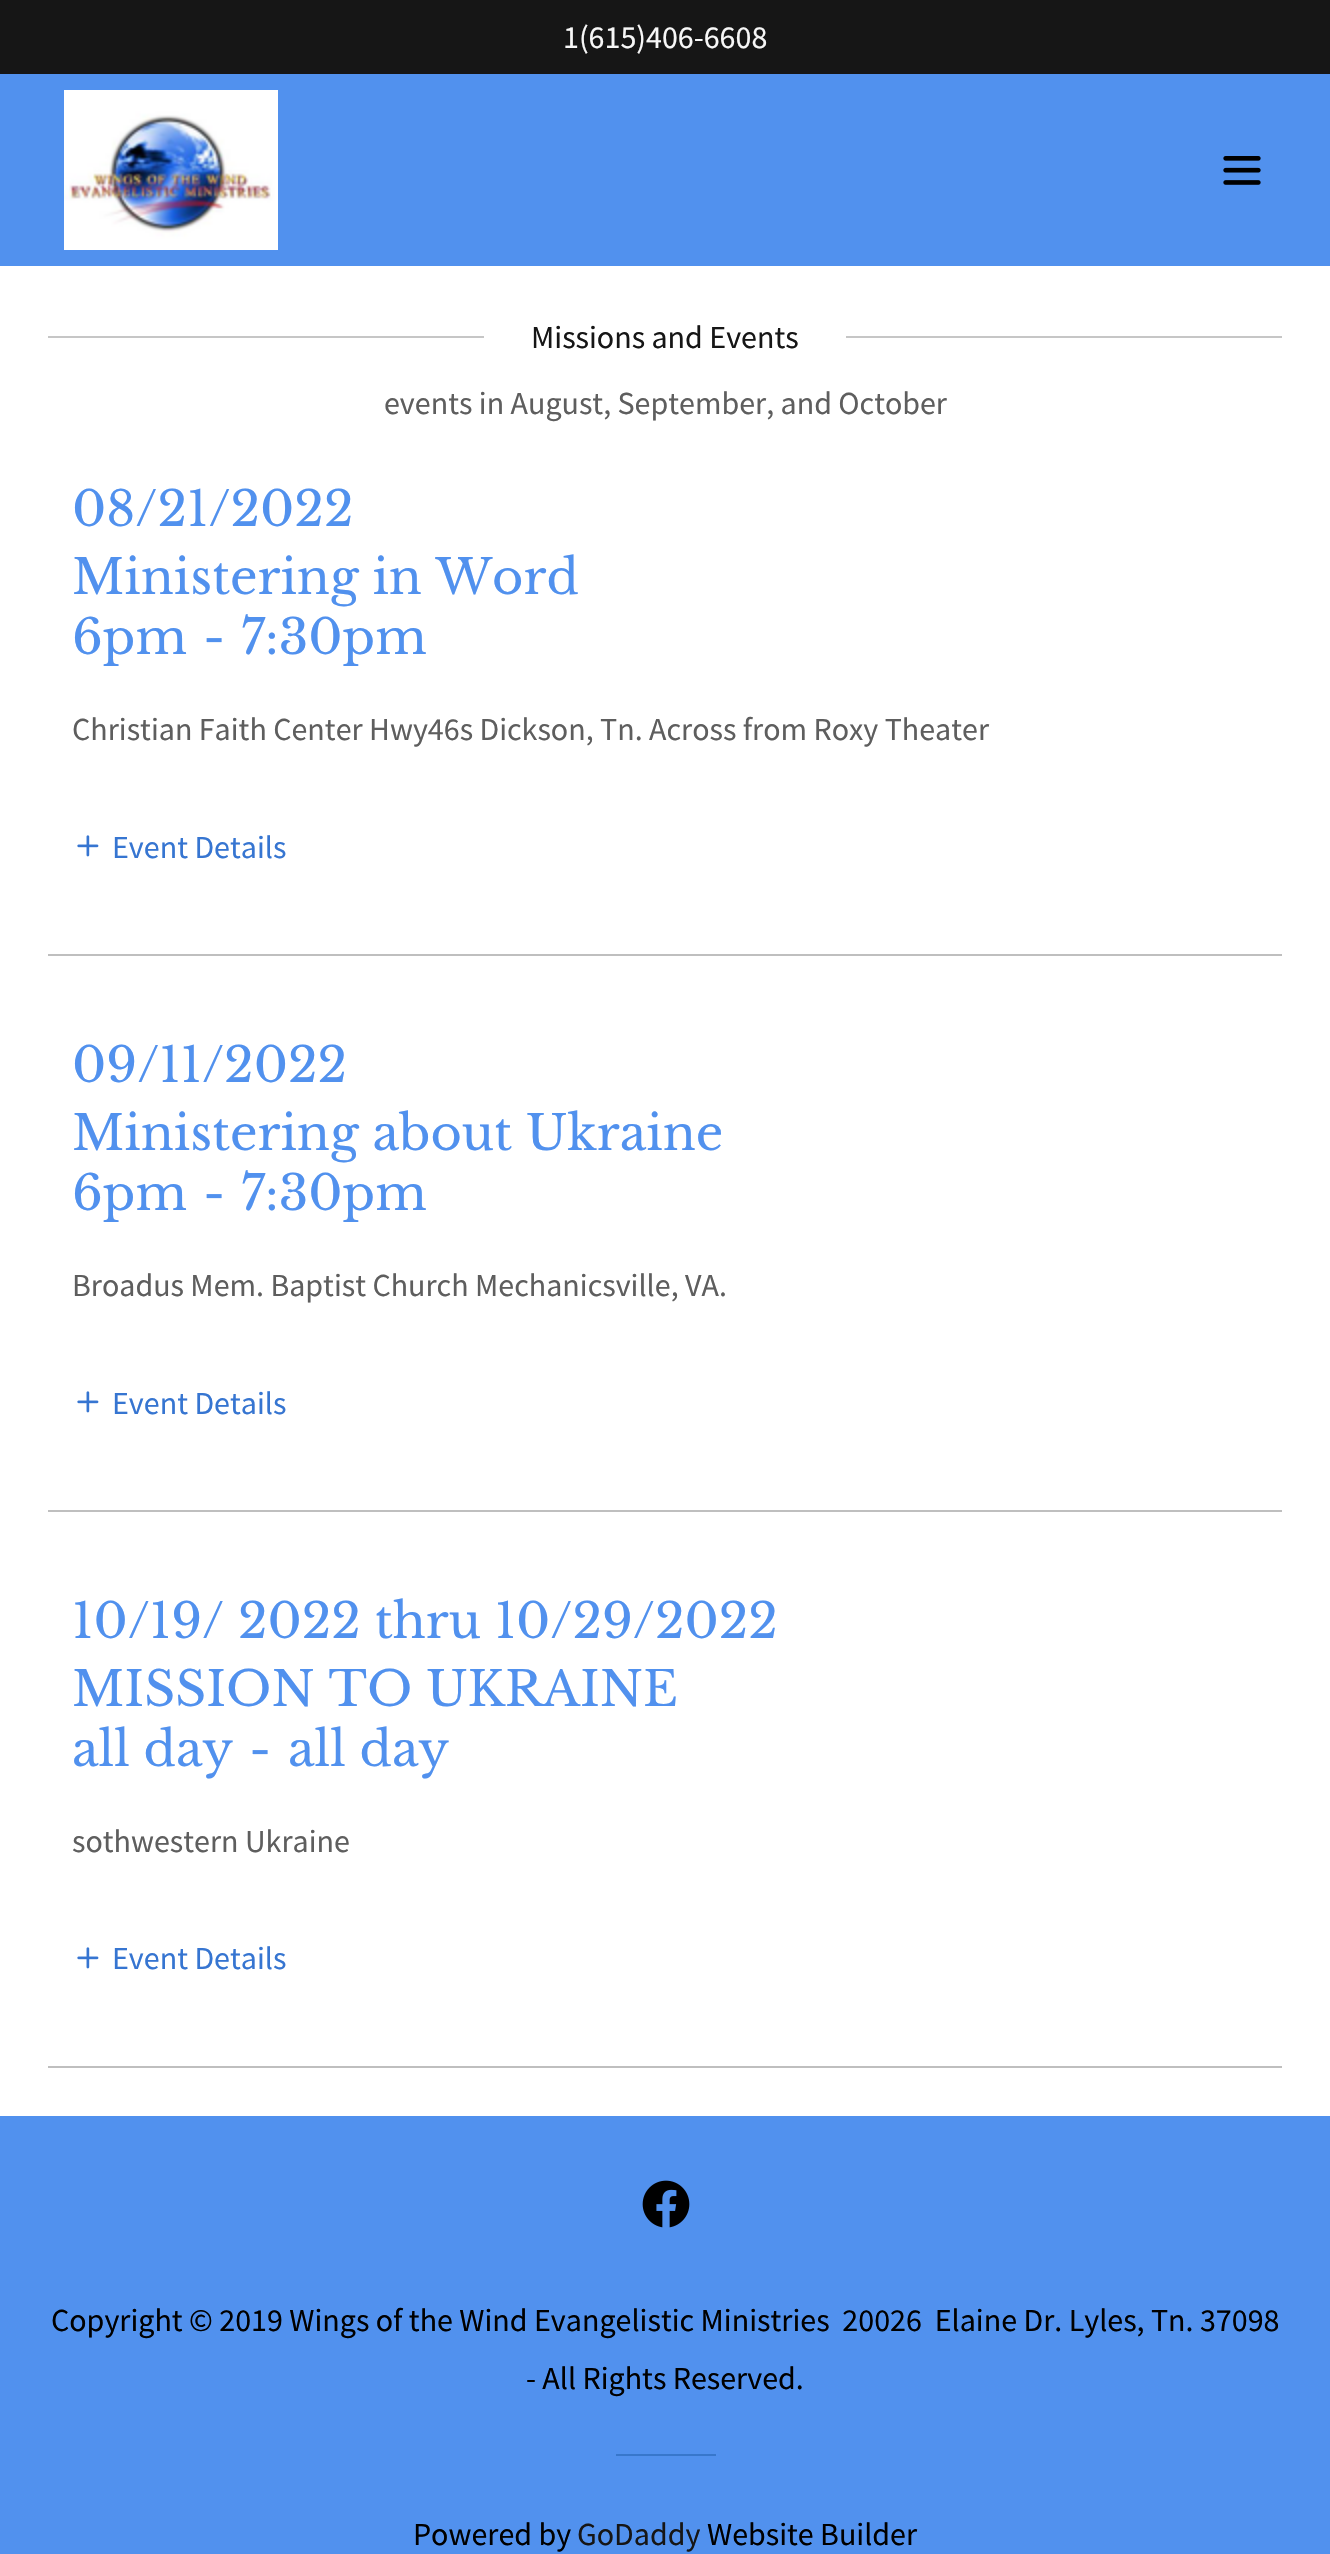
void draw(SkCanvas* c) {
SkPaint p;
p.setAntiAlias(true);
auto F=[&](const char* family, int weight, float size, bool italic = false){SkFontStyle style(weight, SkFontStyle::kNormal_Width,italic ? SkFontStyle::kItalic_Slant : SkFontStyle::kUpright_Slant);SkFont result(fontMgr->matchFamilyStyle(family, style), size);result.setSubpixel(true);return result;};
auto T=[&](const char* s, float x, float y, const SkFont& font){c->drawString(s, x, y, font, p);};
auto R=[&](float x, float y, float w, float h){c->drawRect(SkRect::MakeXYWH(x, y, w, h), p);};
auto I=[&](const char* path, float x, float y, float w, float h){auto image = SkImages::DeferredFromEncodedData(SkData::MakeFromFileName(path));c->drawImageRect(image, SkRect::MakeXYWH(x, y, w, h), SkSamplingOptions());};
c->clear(0xff5191ee);
p.setColor(0xff161616);
R(0,0,1330,74);
auto f1 = F("Source Sans Pro",400,32);
p.setColor(0xfff7f7f7);
T("1(615)406-6608",563,48,f1);
I("1.png",64,90,214,160);
I("2.png",1223,156,38,29);
p.setColor(0xffffffff);
R(0,266,1330,1850);
p.setColor(0xffc6c6c6);
R(48,336,436,2);
p.setColor(0xff161616);
T("Missions and Events",531,348,f1);
p.setColor(0xffc6c6c6);
R(846,336,436,2);
p.setColor(0xff5e5e5e);
T("events in August, September, and October",384,414,f1);
p.setColor(0xffbfbfbf);
R(48,954,1234,2);
auto f2 = F("Libre Baskerville",400,48);
p.setColor(0xff5191ee);
T("08/21/2022",72,526,f2);
T("Ministering in Word",72,594,f2);
T("6pm",72,654,f2);
T("-",203,654,f2);
T("7:30pm",241,654,f2);
p.setColor(0xff5e5e5e);
T("Christian Faith Center Hwy46s Dickson, Tn. Across from Roxy Theater",72,740,f1);
I("3.png",77,835,22,22);
p.setColor(0xff3675d1);
T("Event Details",112,858,f1);
p.setColor(0xffbfbfbf);
R(48,1510,1234,2);
p.setColor(0xff5191ee);
T("09/11/2022",72,1082,f2);
T("Ministering about Ukraine",72,1150,f2);
T("6pm",72,1210,f2);
T("-",203,1210,f2);
T("7:30pm",241,1210,f2);
p.setColor(0xff5e5e5e);
T("Broadus Mem. Baptist Church Mechanicsville, VA.",72,1296,f1);
I("3.png",77,1391,22,22);
p.setColor(0xff3675d1);
T("Event Details",112,1414,f1);
p.setColor(0xffbfbfbf);
R(48,2066,1234,2);
p.setColor(0xff5191ee);
T("10/19/ 2022 thru 10/29/2022",72,1638,f2);
T("MISSION TO UKRAINE",72,1706,f2);
T("all day",72,1766,f2);
T("-",249,1766,f2);
T("all day",288,1766,f2);
p.setColor(0xff5e5e5e);
T("sothwestern Ukraine",72,1852,f1);
I("3.png",77,1947,22,22);
p.setColor(0xff3675d1);
T("Event Details",112,1969,f1);
I("4.png",642,2180,48,48);
p.setColor(0xff000000);
T("Copyright © 2019 Wings of the Wind Evangelistic Ministries  20026  Elaine Dr. Lyles, Tn. 37098",51,2331,f1);
T("- All Rights Reserved.",526,2389,f1);
p.setColor(0xff3777cc);
R(616,2454,100,2);
p.setColor(0xff000000);
T("Powered by",413,2545,f1);
p.setColor(0xff161616);
T("GoDaddy",577,2545,f1);
p.setColor(0xff000000);
T("Website Builder",707,2545,f1);
}
